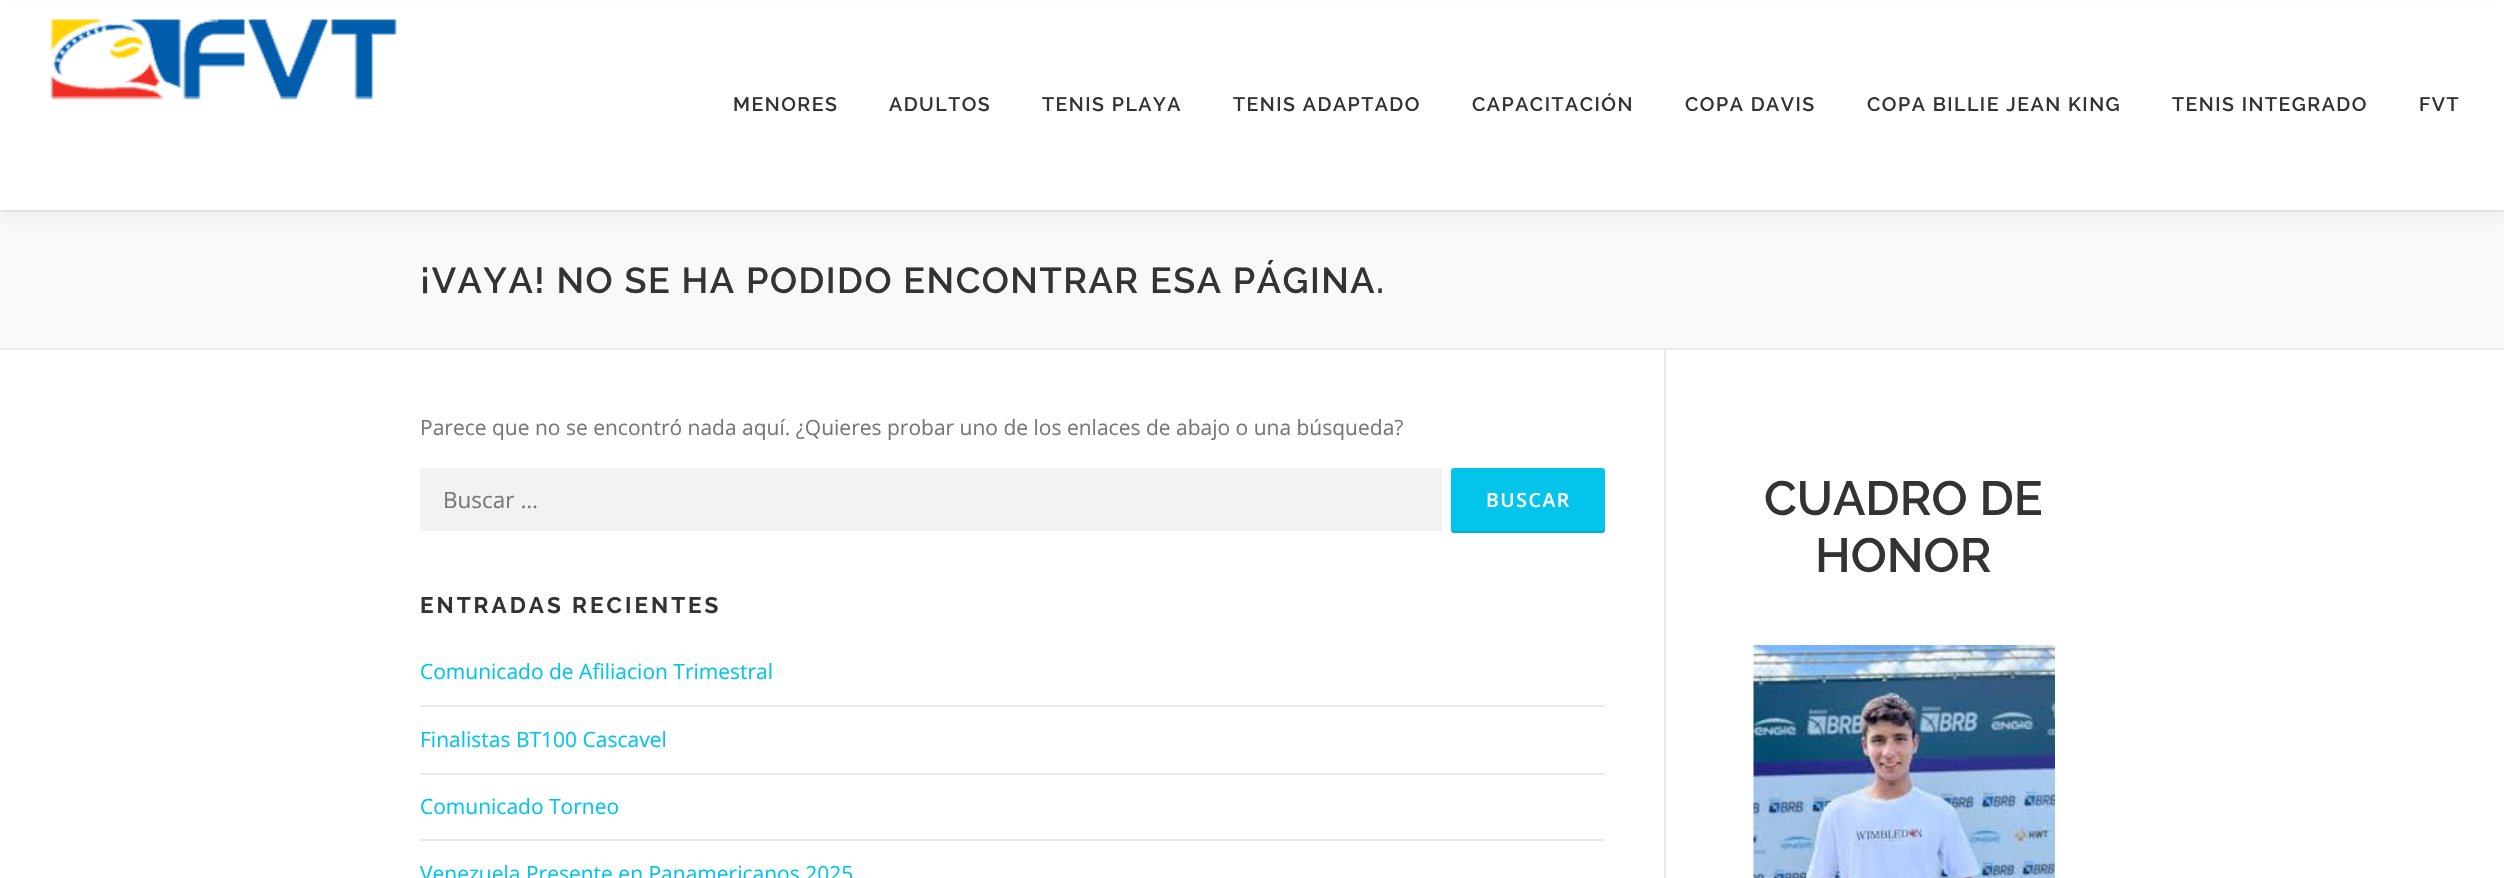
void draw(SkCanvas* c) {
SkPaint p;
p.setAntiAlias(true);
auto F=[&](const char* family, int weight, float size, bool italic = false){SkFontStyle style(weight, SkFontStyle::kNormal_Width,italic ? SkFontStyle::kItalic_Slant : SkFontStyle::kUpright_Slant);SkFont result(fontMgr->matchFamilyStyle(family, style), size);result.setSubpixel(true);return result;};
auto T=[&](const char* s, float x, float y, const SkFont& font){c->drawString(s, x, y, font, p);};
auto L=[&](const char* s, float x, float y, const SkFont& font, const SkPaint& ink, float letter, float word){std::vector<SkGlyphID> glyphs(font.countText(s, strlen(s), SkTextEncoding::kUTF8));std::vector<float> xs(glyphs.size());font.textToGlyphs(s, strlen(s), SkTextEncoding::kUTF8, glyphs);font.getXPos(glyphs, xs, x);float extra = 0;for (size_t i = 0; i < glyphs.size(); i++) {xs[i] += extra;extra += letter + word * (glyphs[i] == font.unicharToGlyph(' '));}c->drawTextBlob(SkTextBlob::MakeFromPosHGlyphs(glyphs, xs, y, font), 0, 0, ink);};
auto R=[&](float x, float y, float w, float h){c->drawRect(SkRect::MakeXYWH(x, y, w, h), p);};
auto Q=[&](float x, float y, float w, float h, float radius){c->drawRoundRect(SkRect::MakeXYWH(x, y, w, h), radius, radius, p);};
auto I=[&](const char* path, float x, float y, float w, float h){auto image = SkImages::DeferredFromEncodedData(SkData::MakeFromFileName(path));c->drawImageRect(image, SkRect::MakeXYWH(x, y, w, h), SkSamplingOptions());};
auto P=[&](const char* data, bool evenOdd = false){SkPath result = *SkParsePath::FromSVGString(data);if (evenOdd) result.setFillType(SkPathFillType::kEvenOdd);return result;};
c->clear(0xffffffff);
p.setColor(0xfff8f9f9);
R(0,212,2504,136);
p.setColor(0xffe9e9e9);
R(0,210,2504,2);
p.setColor(0x0f323232);
p.setMaskFilter(SkMaskFilter::MakeBlur(kNormal_SkBlurStyle, 7.5));
c->drawRect(SkRect::MakeXYWH(0,8,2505,210),p);
p.setMaskFilter(nullptr);
p.setColor(0xffffffff);
R(0,2,2504,208);
I("1.png",50,19,347,81);
auto f1 = F("Raleway",600,19.5);
p.setColor(0xff333333);
L("MENORES",733,111,f1,p,1.5,0);
L("ADULTOS",889,111,f1,p,1.5,0);
L("TENIS PLAYA",1042,111,f1,p,1.5,0);
L("TENIS ADAPTADO",1233,111,f1,p,1.5,0);
L("CAPACITACIÓN",1472,111,f1,p,1.5,0);
L("COPA DAVIS",1685,111,f1,p,1.5,0);
L("COPA BILLIE JEAN KING",1867,111,f1,p,1.5,0);
L("TENIS INTEGRADO",2172,111,f1,p,1.5,0);
L("FVT",2419,111,f1,p,1.5,0);
p.setColor(0xffe9e9e9);
R(0,348,2504,2);
auto f2 = F("Raleway",600,36);
p.setColor(0xff333333);
L("¡VAYA! NO SE HA PODIDO ENCONTRAR ESA PÁGINA.",420,293,f2,p,1.5,0);
p.setColor(0xffe9e9e9);
R(1664,350,2,528);
auto f3 = F("Open Sans",400,21);
p.setColor(0xff777777);
T("Parece que no se encontró nada aquí. ¿Quieres probar uno de los enlaces de abajo o una búsqueda?",420,435,f3);
p.setColor(0xfff2f2f2);
R(420,468,1022,63);
auto f4 = F("Open Sans",400,22.5);
p.setColor(0xff777777);
T("Buscar …",443,508,f4);
p.setColor(0xff03c4eb);
Q(1451,468,154,65,3);
p.setColor(0x1a000000);
c->drawPath(P("M1451 530c0 2 1 3 3 3h148c2 0 3-1 3-3v-2c0 2-1 3-3 3h-148c-1 0-2 0-3-1z"),p);
auto f5 = F("Open Sans",600,19.5);
p.setColor(0xffffffff);
L("BUSCAR",1486,507,f5,p,1.5,0);
auto f6 = F("Raleway",700,22.5);
p.setColor(0xff333333);
L("ENTRADAS RECIENTES",420,613,f6,p,3,0);
p.setColor(0xffe9e9e9);
R(420,705,1185,2);
p.setColor(0xff03c4eb);
T("Comunicado de Afiliacion Trimestral",420,679,f3);
p.setColor(0xffe9e9e9);
R(420,773,1185,2);
p.setColor(0xff03c4eb);
T("Finalistas BT100 Cascavel",420,747,f3);
p.setColor(0xffe9e9e9);
R(420,839,1185,2);
p.setColor(0xff03c4eb);
T("Comunicado Torneo",420,814,f3);
T("Venezuela Presente en Panamericanos 2025",420,881,f3);
auto f7 = F("Raleway",600,48);
p.setColor(0xff333333);
T("CUADRO DE",1764,515,f7);
T("HONOR",1815,572,f7);
I("2.png",1753,645,302,233);
}
